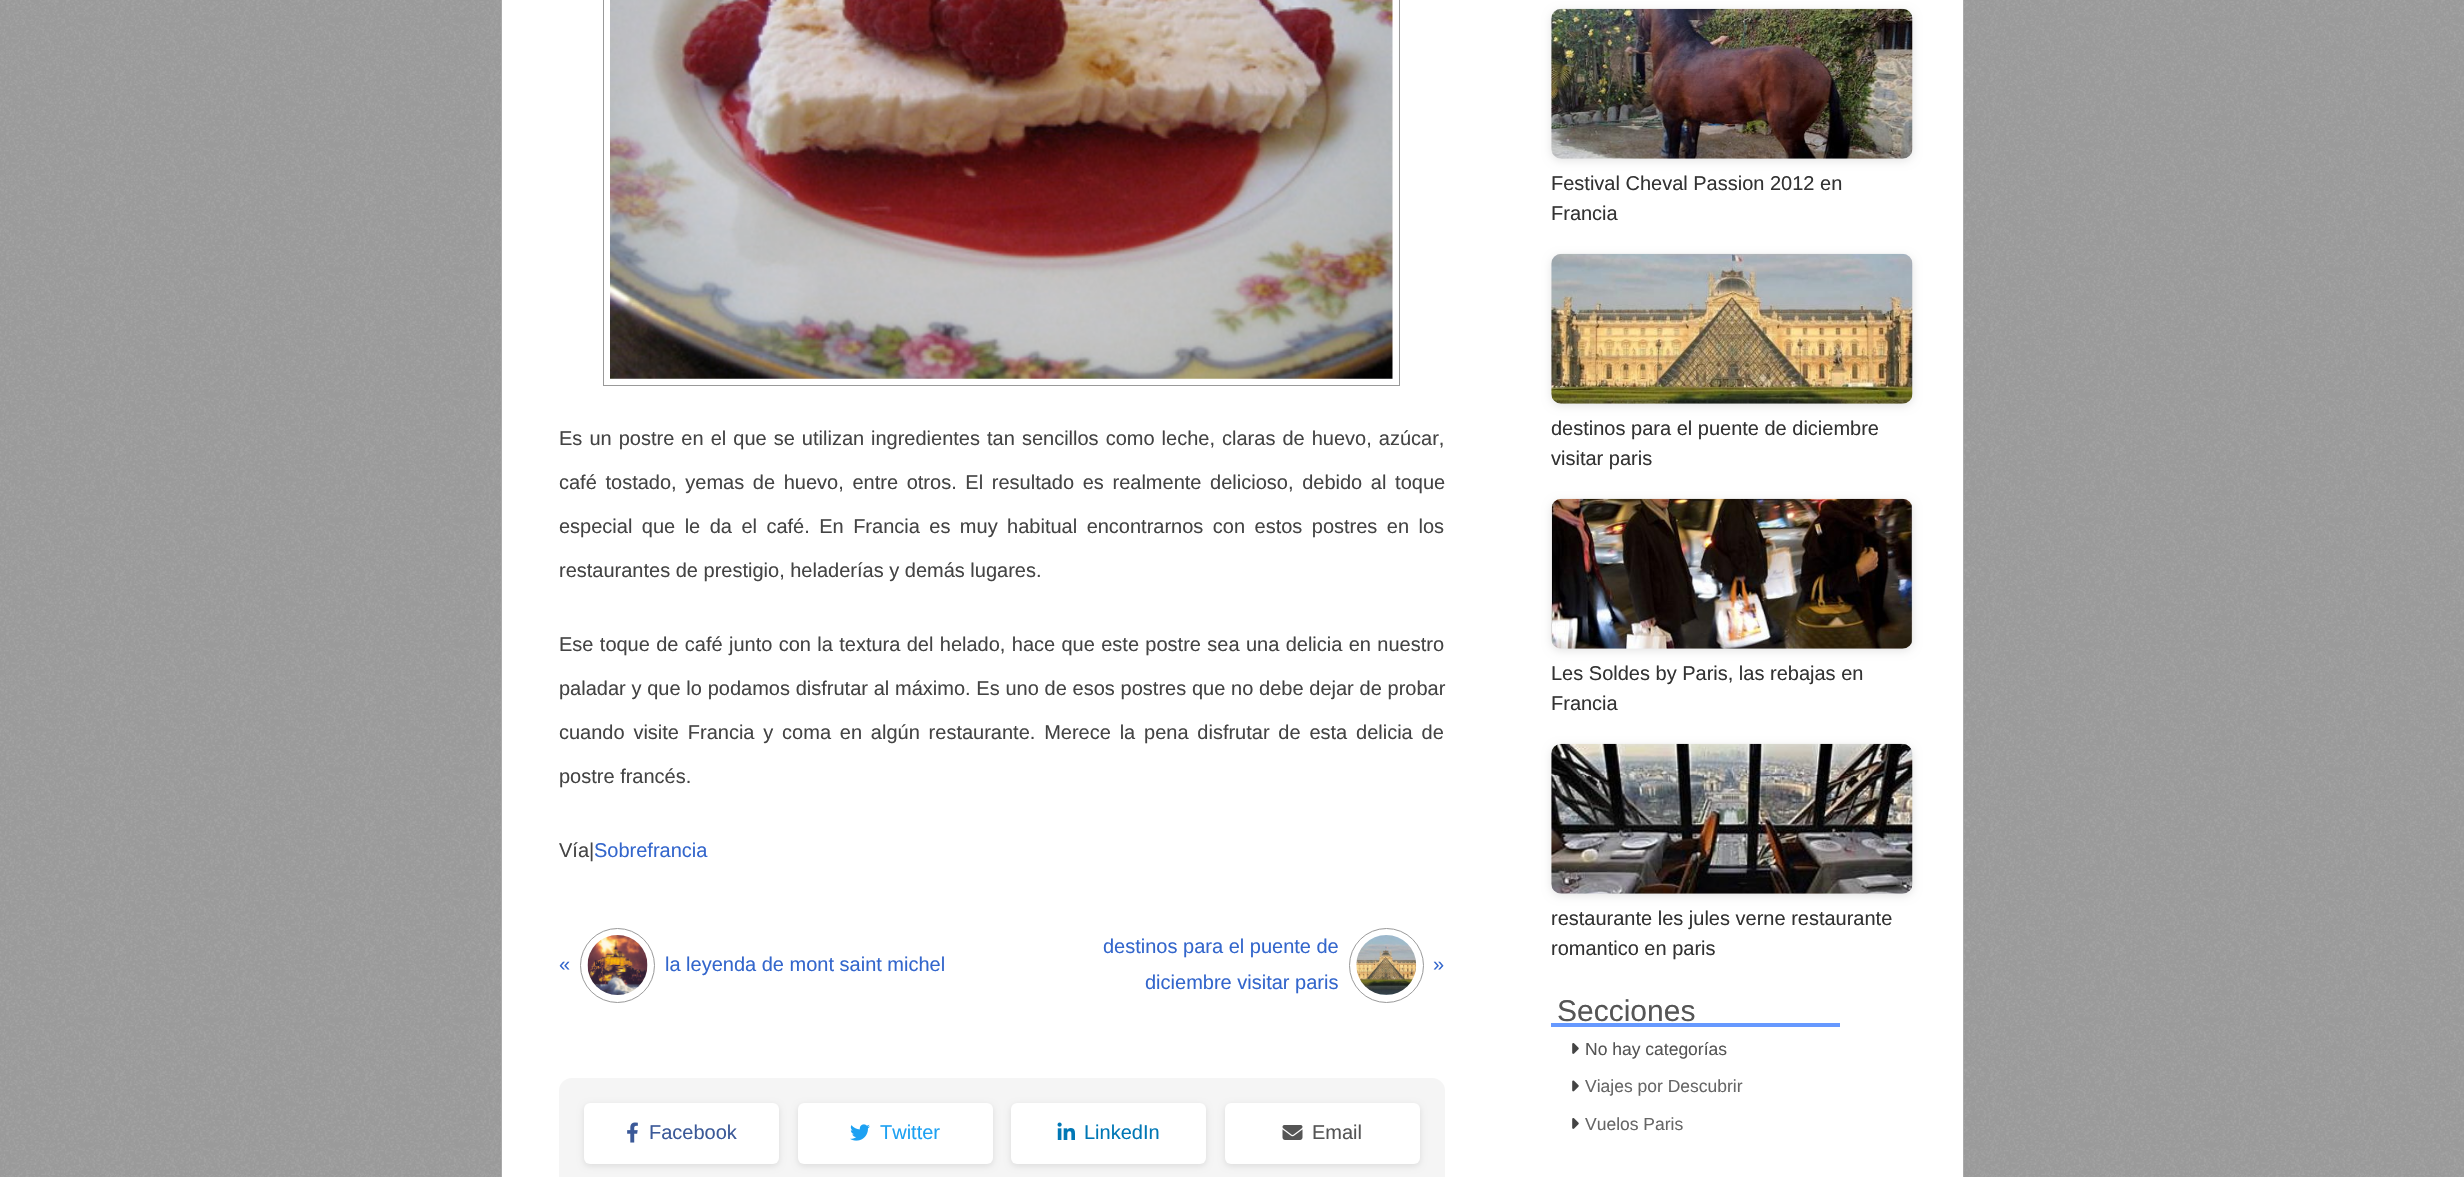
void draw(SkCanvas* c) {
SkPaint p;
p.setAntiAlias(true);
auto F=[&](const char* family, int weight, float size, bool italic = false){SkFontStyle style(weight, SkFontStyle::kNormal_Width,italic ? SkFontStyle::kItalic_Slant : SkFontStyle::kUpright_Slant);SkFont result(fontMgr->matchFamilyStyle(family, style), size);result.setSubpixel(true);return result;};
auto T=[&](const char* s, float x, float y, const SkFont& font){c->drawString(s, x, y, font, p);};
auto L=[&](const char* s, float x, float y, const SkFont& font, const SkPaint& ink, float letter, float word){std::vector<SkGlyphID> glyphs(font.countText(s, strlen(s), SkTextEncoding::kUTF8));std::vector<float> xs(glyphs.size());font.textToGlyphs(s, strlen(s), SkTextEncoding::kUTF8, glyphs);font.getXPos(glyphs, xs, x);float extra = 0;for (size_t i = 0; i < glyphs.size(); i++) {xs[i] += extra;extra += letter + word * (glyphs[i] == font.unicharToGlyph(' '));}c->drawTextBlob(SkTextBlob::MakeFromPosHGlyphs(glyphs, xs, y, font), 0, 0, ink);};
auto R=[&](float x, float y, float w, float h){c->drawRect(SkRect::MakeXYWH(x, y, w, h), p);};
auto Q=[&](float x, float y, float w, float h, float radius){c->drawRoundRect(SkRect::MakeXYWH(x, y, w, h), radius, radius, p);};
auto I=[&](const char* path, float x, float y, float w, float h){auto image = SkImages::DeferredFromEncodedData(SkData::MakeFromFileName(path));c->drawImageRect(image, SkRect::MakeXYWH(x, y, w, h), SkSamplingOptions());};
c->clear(0xffffffff);
I("1.png",0,0,2464,1177);
p.setColor(0xffffffff);
c->drawRect(SkRect::MakeXYWH(501.5,-.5,1462,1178),p);
p.setStroke(true);
p.setStrokeWidth(1);
p.setColor(0xffaaaaaa);
c->drawRect(SkRect::MakeXYWH(501.5,-.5,1462,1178),p);
p.setColor(0xff999999);
c->drawRect(SkRect::MakeXYWH(603.5,-.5,796,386),p);
I("2.png",610,0,783,379);
auto f1 = F("Liberation Sans",400,20);
p.setStroke(false);
p.setColor(0xff444444);
L("Es un postre en el que se utilizan",559,445,f1,p,0,1.5);
L("ingredientes tan sencillos como leche, claras de huevo, azúcar,",871,445,f1,p,0,1.5);
L("café tostado, yemas de huevo, entre otros. El resultado es realmente delicioso, debido al toque",559,489,f1,p,0,3.1);
L("especial que le da el café. En Francia es muy habitual encontrarnos con estos postres en los",559,533,f1,p,0,3.9);
T("restaurantes de prestigio, heladerías y demás lugares.",559,577,f1);
L("Ese toque de café junto con la textura del helado, hace que este postre sea una delicia en nuestro",559,651,f1,p,0,.8);
L("paladar y que lo podamos disfrutar al máximo. Es uno de esos postres que no debe dejar de probar",559,695,f1,p,0,.2);
L("cuando visite Francia y coma en algún restaurante. Merece la pena disfrutar de esta delicia de",559,739,f1,p,0,3.25);
T("postre francés.",559,783,f1);
T("Vía|",559,857,f1);
p.setColor(0xff3366cc);
T("Sobrefrancia",594,857,f1);
T("«",559,971,f1);
p.setStroke(true);
p.setColor(0xff999999);
c->drawCircle(617.5,965.5,37,p);
I("3.png",587,935,61,60);
p.setStroke(false);
p.setColor(0xff3366cc);
T("la leyenda de mont saint michel",665,971,f1);
T("destinos para el puente de",1103,953,f1);
p.setStroke(true);
p.setColor(0xff999999);
c->drawCircle(1386.5,965.5,37,p);
I("4.png",1356,935,61,60);
p.setStroke(false);
p.setColor(0xff3366cc);
T("»",1433,971,f1);
T("diciembre visitar paris",1145,989,f1);
p.setColor(0xfff5f5f5);
Q(559,1078,886,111,13);
p.setColor(0x1a000000);
p.setMaskFilter(SkMaskFilter::MakeBlur(kNormal_SkBlurStyle, 3));
c->drawRoundRect(SkRect::MakeXYWH(584,1105,195,61),6,6,p);
p.setMaskFilter(nullptr);
p.setColor(0xffffffff);
Q(584,1103,195,61,6);
I("5.png",627,1122,11,21);
p.setColor(0xff3b5998);
T("Facebook",649,1139,f1);
p.setColor(0x1a000000);
p.setMaskFilter(SkMaskFilter::MakeBlur(kNormal_SkBlurStyle, 3));
c->drawRoundRect(SkRect::MakeXYWH(798,1105,195,61),6,6,p);
p.setMaskFilter(nullptr);
p.setColor(0xffffffff);
Q(798,1103,195,61,6);
I("6.png",850,1124,20,17);
p.setColor(0xff1da1f2);
T("Twitter",880,1139,f1);
p.setColor(0x1a000000);
p.setMaskFilter(SkMaskFilter::MakeBlur(kNormal_SkBlurStyle, 3));
c->drawRoundRect(SkRect::MakeXYWH(1011,1105,195,61),6,6,p);
p.setMaskFilter(nullptr);
p.setColor(0xffffffff);
Q(1011,1103,195,61,6);
I("7.png",1057,1122,18,18);
p.setColor(0xff0077b5);
T("LinkedIn",1084,1139,f1);
p.setColor(0x1a000000);
p.setMaskFilter(SkMaskFilter::MakeBlur(kNormal_SkBlurStyle, 3));
c->drawRoundRect(SkRect::MakeXYWH(1225,1105,195,61),6,6,p);
p.setMaskFilter(nullptr);
p.setColor(0xffffffff);
Q(1225,1103,195,61,6);
I("8.png",1282,1125,21,15);
p.setColor(0xff555555);
T("Email",1312,1139,f1);
p.setColor(0x1a000000);
p.setMaskFilter(SkMaskFilter::MakeBlur(kNormal_SkBlurStyle, 4));
c->drawRoundRect(SkRect::MakeXYWH(1551,11,362,150),10,10,p);
p.setMaskFilter(nullptr);
I("9.png",1551,8,362,151);
p.setColor(0xff333333);
T("Festival Cheval Passion 2012 en",1551,190,f1);
T("Francia",1551,220,f1);
p.setColor(0x1a000000);
p.setMaskFilter(SkMaskFilter::MakeBlur(kNormal_SkBlurStyle, 4));
c->drawRoundRect(SkRect::MakeXYWH(1551,256,362,150),10,10,p);
p.setMaskFilter(nullptr);
I("10.png",1551,253,362,151);
p.setColor(0xff333333);
T("destinos para el puente de diciembre",1551,435,f1);
T("visitar paris",1551,465,f1);
p.setColor(0x1a000000);
p.setMaskFilter(SkMaskFilter::MakeBlur(kNormal_SkBlurStyle, 4));
c->drawRoundRect(SkRect::MakeXYWH(1551,501,362,150),10,10,p);
p.setMaskFilter(nullptr);
I("11.png",1551,498,362,151);
p.setColor(0xff333333);
T("Les Soldes by Paris, las rebajas en",1551,680,f1);
T("Francia",1551,710,f1);
p.setColor(0x1a000000);
p.setMaskFilter(SkMaskFilter::MakeBlur(kNormal_SkBlurStyle, 4));
c->drawRoundRect(SkRect::MakeXYWH(1551,746,362,150),10,10,p);
p.setMaskFilter(nullptr);
I("12.png",1551,743,362,151);
p.setColor(0xff333333);
T("restaurante les jules verne restaurante",1551,925,f1);
T("romantico en paris",1551,955,f1);
p.setColor(0xff6699ff);
R(1551,1023,289,4);
auto f2 = F("Liberation Sans",400,30);
p.setColor(0xff555555);
T("Secciones",1557,1021,f2);
I("13.png",1572,1043,7,11);
auto f3 = F("Liberation Sans",400,17.5);
T("No hay categorías",1585,1055,f3);
I("14.png",1572,1080,7,12);
p.setColor(0xff666666);
T("Viajes por Descubrir",1585,1092,f3);
I("13.png",1572,1118,7,11);
T("Vuelos Paris",1585,1130,f3);
}
